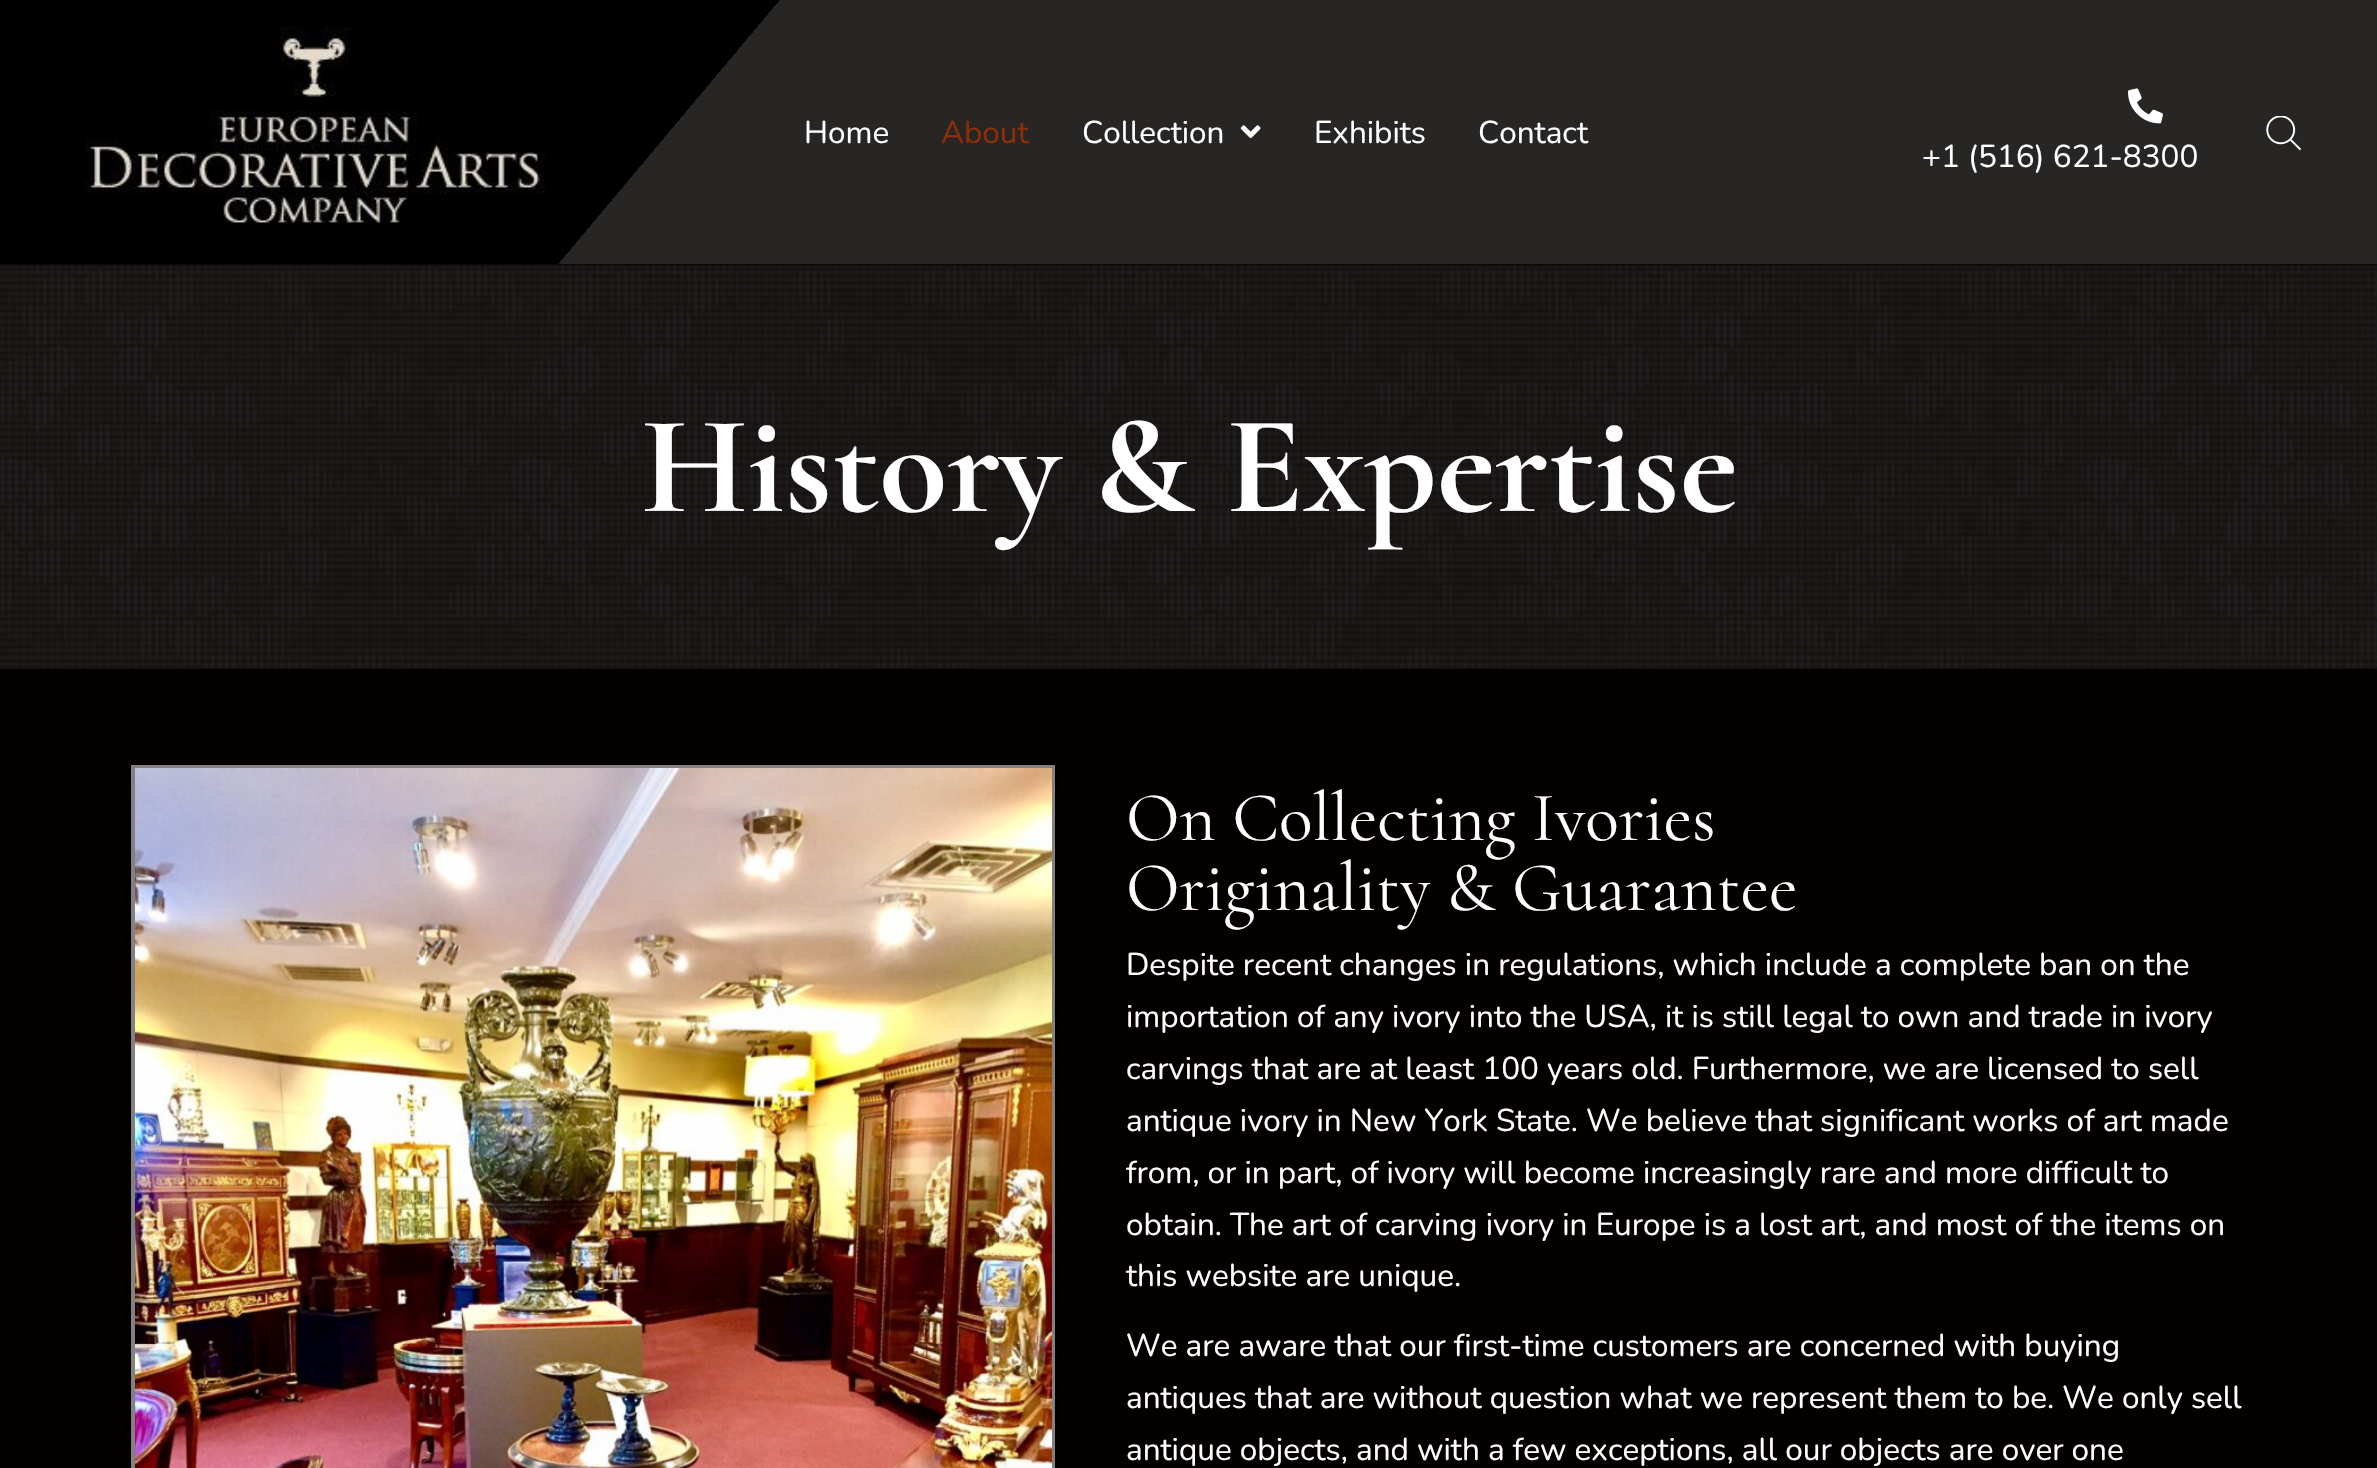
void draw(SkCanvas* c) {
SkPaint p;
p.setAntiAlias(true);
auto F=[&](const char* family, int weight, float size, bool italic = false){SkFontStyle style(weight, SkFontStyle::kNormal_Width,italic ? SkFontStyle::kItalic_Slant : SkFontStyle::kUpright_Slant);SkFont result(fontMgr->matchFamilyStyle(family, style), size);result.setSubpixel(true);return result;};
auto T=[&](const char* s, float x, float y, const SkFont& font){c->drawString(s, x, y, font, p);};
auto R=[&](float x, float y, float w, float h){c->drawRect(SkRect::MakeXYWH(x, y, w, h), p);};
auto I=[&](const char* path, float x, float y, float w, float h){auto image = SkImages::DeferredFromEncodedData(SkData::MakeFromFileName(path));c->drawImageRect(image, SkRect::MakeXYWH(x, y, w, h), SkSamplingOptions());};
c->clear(0xff050000);
p.setColor(0xff151111);
R(0,266,2377,403);
{
const SkColor colors[] = {0xff000000,0xff272624};
const float stops[] = {.3,.3};
const SkPoint ends[] = {{426,-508}, {1952,772}};
p.setShader(SkGradientShader::MakeLinear(ends, colors, stops, 2, SkTileMode::kClamp));
p.setAlpha(255);
}
R(0,0,2377,264);
p.setShader(nullptr);
p.setColor(0xff0c0c0c);
R(0,264,2377,2);
I("1.png",84,26,462,197);
auto f1 = F("Nunito",400,31.5);
p.setColor(0xffffffff);
T("Home",804,143,f1);
p.setColor(0xff8f2d06);
T("About",941,143,f1);
p.setColor(0xffffffff);
T("Collection",1082,143,f1);
I("2.png",1240,125,21,13);
T("Exhibits",1314,143,f1);
T("Contact",1478,143,f1);
I("3.png",2266,116,35,35);
I("4.png",2128,88,35,36);
T("+1 (516) 621-8300",1922,167,f1);
I("5.png",0,266,2377,403);
auto f2 = F("Cormorant",700,140);
T("History & Expertise",641,511,f2);
p.setStroke(true);
p.setStrokeWidth(4);
p.setColor(0xff828181);
c->drawRect(SkRect::MakeXYWH(133,767,920,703),p);
I("6.png",135,768,917,700);
auto f3 = F("Cormorant",400,70);
p.setStroke(false);
p.setColor(0xffffffff);
T("On Collecting Ivories",1126,840,f3);
T("Originality & Guarantee",1126,910,f3);
T("Despite recent changes in regulations, which include a complete ban on the",1126,975,f1);
T("importation of any ivory into the USA, it is still legal to own and trade in ivory",1126,1027,f1);
T("carvings that are at least 100 years old. Furthermore, we are licensed to sell",1126,1079,f1);
T("antique ivory in New York State. We believe that significant works of art made",1126,1131,f1);
T("from, or in part, of ivory will become increasingly rare and more difficult to",1126,1183,f1);
T("obtain. The art of carving ivory in Europe is a lost art, and most of the items on",1126,1235,f1);
T("this website are unique.",1126,1286,f1);
T("We are aware that our first-time customers are concerned with buying",1126,1356,f1);
T("antiques that are without question what we represent them to be. We only sell",1126,1408,f1);
T("antique objects, and with a few exceptions, all our objects are over one",1126,1460,f1);
}
